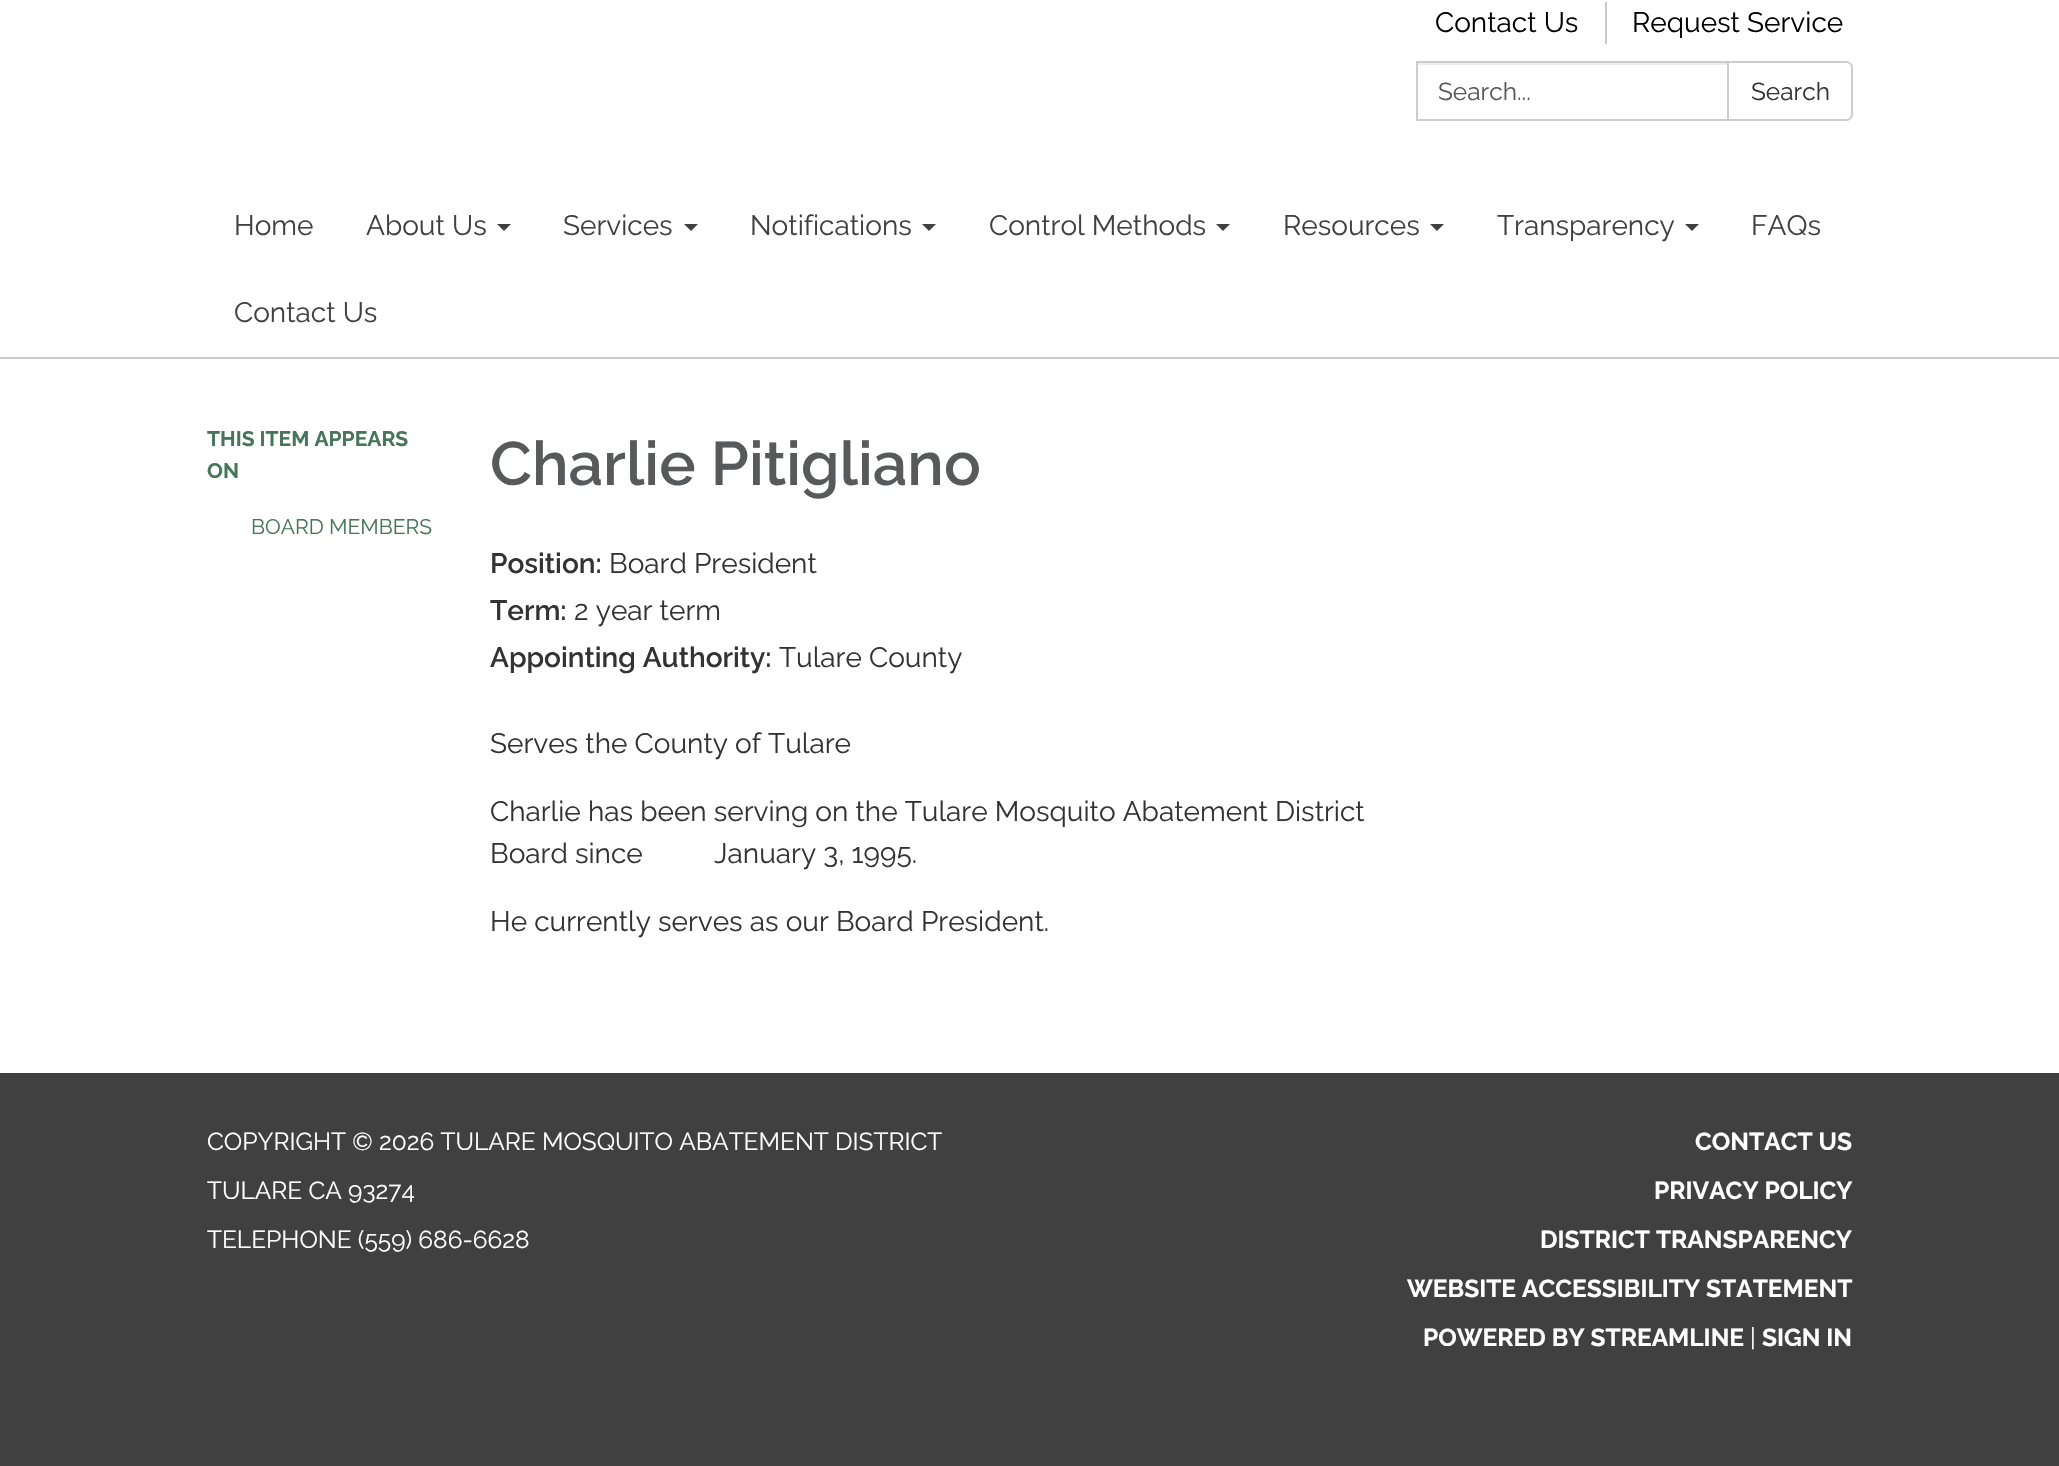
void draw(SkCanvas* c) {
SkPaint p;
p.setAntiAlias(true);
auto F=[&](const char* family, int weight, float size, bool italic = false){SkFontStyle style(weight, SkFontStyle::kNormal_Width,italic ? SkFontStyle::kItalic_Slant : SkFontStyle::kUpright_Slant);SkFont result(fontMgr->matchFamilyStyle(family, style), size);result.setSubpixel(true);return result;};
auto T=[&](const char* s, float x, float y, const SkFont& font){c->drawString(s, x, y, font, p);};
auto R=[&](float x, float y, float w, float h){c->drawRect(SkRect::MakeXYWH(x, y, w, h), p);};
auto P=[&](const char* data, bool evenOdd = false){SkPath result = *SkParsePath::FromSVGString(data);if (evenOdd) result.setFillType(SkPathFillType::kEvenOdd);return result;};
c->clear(0xff404041);
p.setColor(0xffffffff);
R(0,0,2059,357);
auto f1 = F("Raleway",400,28);
p.setColor(0xff000000);
T("Contact Us",1435,32,f1);
p.setColor(0xffc8c9cb);
R(1605,2,2,42);
p.setColor(0xff000000);
T("Request Service",1632,32,f1);
p.setColor(0xffececec);
R(1418,63,309,2);
p.setStroke(true);
p.setStrokeWidth(2);
p.setColor(0xffcccccc);
c->drawRect(SkRect::MakeXYWH(1417,62,311,58),p);
auto f2 = F("Raleway",400,24.5);
p.setStroke(false);
p.setColor(0xff58595b);
T("Search...",1438,100,f2);
p.setColor(0xffffffff);
c->drawPath(P("M1728 62h118c3.5 0 6 2.5 6 6v46c0 3.5-2.5 6-6 6h-118z"),p);
p.setStroke(true);
p.setColor(0xffcccccc);
c->drawPath(P("M1728 62h118c3.5 0 6 2.5 6 6v46c0 3.5-2.5 6-6 6h-118z"),p);
p.setStroke(false);
p.setColor(0xff333333);
T("Search",1751,100,f2);
p.setColor(0xff404041);
T("Home",234,235,f1);
T("About Us",366,235,f1);
c->drawPath(P("M497 224h14l-7 7z"),p);
T("Services",563,235,f1);
c->drawPath(P("M684 224h14l-7 7z"),p);
T("Notifications",750,235,f1);
c->drawPath(P("M922 224h14l-7 7z"),p);
T("Control Methods",989,235,f1);
c->drawPath(P("M1216 224h14l-7 7z"),p);
T("Resources",1283,235,f1);
c->drawPath(P("M1430 224h14l-7 7z"),p);
T("Transparency",1497,235,f1);
c->drawPath(P("M1685 224h14l-7 7z"),p);
T("FAQs",1751,235,f1);
T("Contact Us",234,322,f1);
p.setColor(0xffffffff);
R(0,359,2059,714);
p.setColor(0xffcccccc);
R(0,357,2059,2);
auto f3 = F("Raleway",700,21);
p.setColor(0xff46755a);
T("THIS ITEM APPEARS",207,446,f3);
T("ON",207,478,f3);
auto f4 = F("Raleway",400,21);
T("BOARD MEMBERS",251,534,f4);
auto f5 = F("Raleway",600,61.25);
p.setColor(0xff58595b);
T("Charlie Pitigliano",490,485,f5);
auto f6 = F("Raleway",600,28);
p.setColor(0xff333333);
T("Position:",490,573,f6);
T("Board President",609,573,f1);
T("Term:",490,620,f6);
T("2 year term",574,620,f1);
T("Appointing Authority:",490,667,f6);
T("Tulare County",779,667,f1);
T("Serves the County of Tulare",490,753,f1);
T("Charlie has been serving on the Tulare Mosquito Abatement District",490,821,f1);
T("Board since          January 3, 1995.",490,863,f1);
T("He currently serves as our Board President.",490,931,f1);
p.setColor(0xffffffff);
T("COPYRIGHT © 2026 TULARE MOSQUITO ABATEMENT DISTRICT",207,1150,f2);
T("TULARE CA 93274",207,1199,f2);
T("TELEPHONE (559) 686-6628",207,1248,f2);
auto f7 = F("Raleway",700,24.5);
T("CONTACT US",1695,1150,f7);
T("PRIVACY POLICY",1654,1199,f7);
T("DISTRICT TRANSPARENCY",1540,1248,f7);
T("WEBSITE ACCESSIBILITY STATEMENT",1407,1297,f7);
T("POWERED BY STREAMLINE",1423,1346,f7);
T("|",1750,1346,f2);
T("SIGN IN",1762,1346,f7);
}
